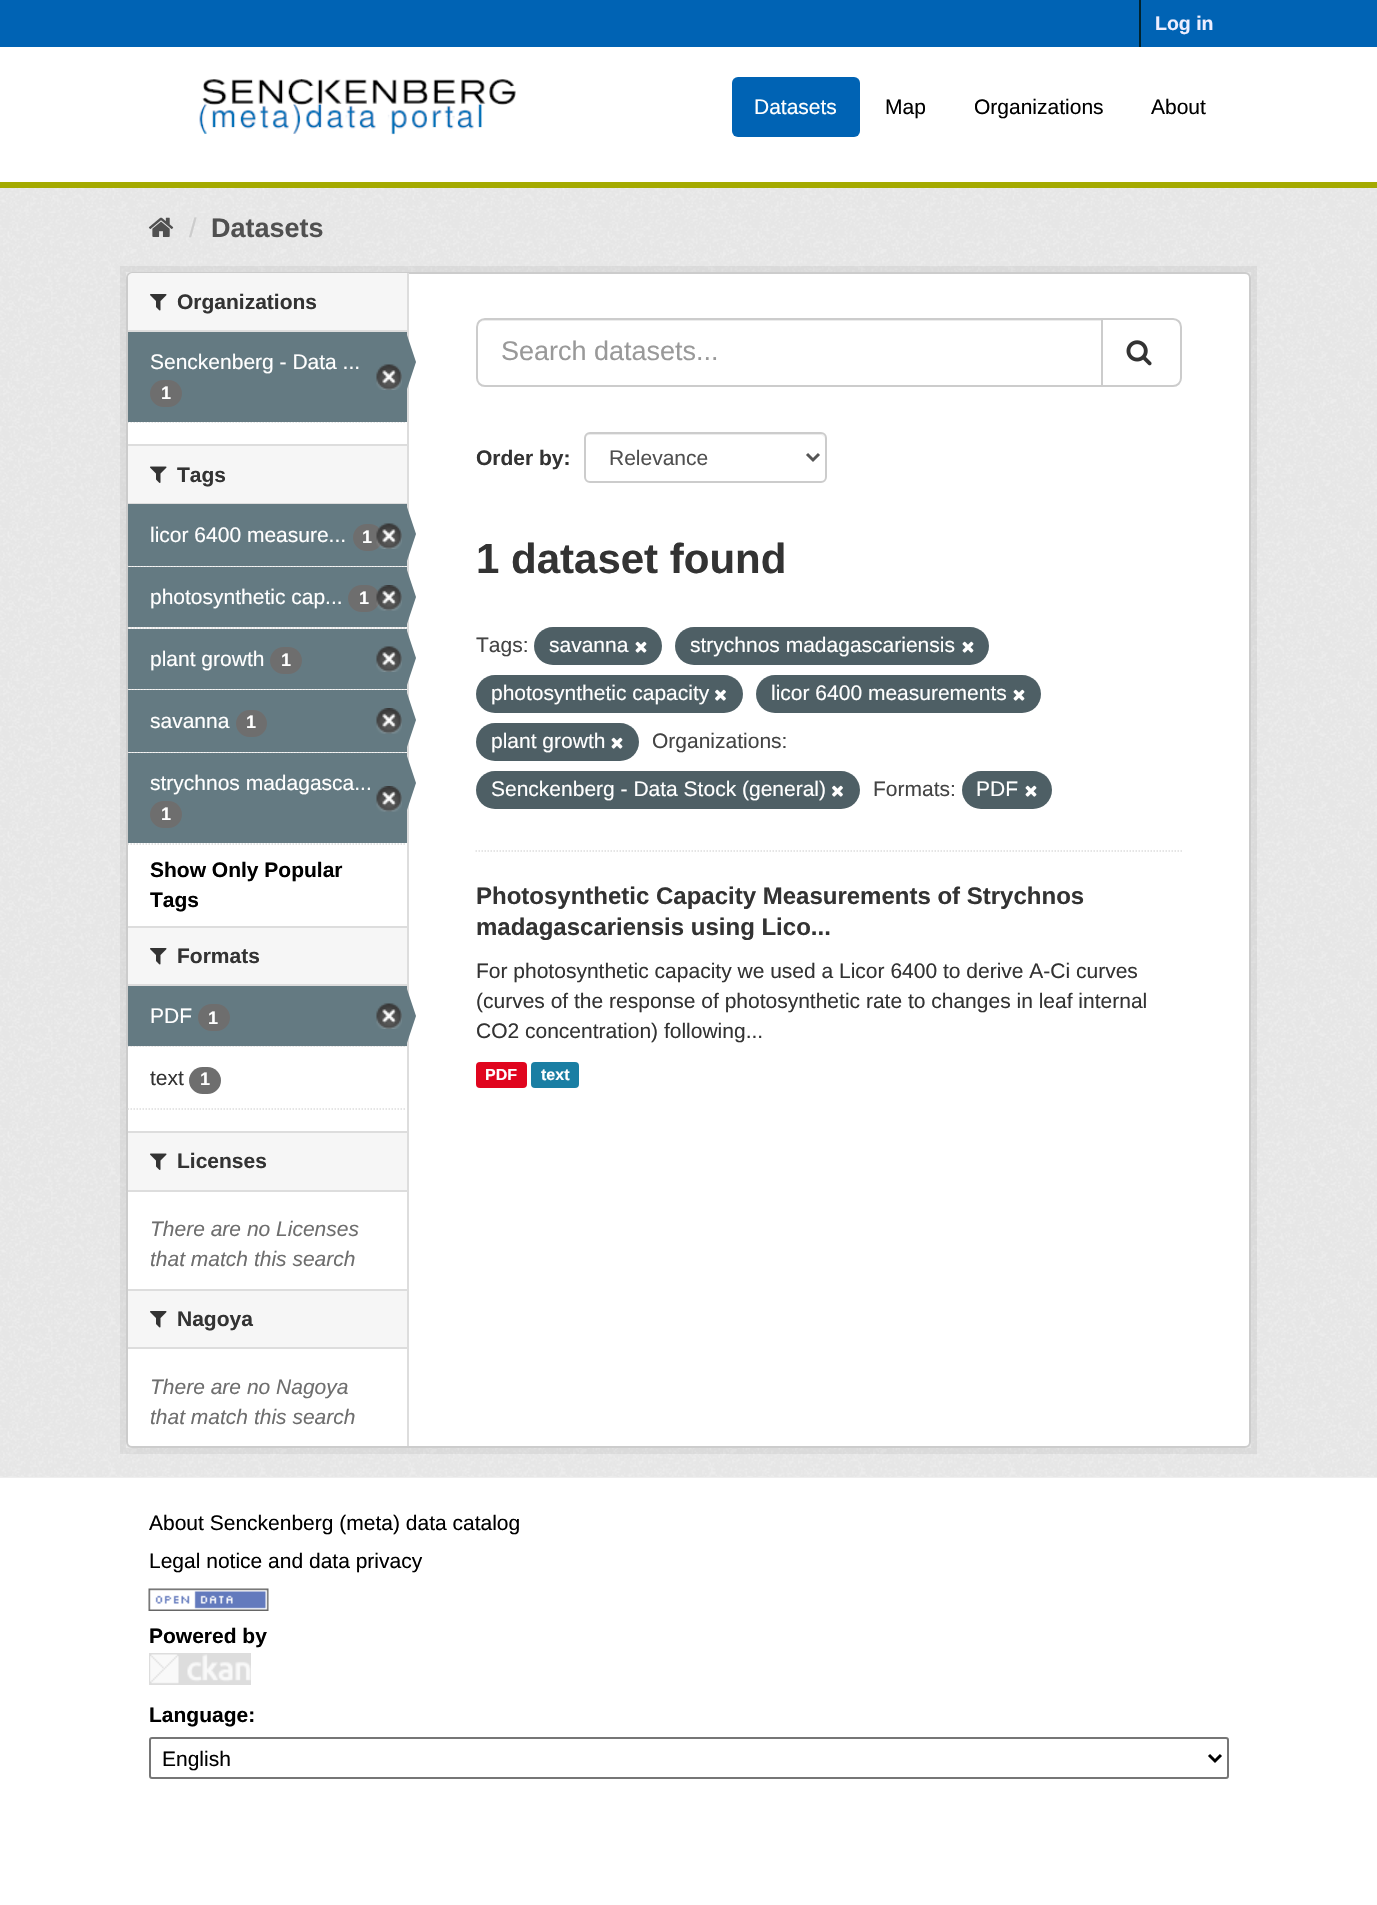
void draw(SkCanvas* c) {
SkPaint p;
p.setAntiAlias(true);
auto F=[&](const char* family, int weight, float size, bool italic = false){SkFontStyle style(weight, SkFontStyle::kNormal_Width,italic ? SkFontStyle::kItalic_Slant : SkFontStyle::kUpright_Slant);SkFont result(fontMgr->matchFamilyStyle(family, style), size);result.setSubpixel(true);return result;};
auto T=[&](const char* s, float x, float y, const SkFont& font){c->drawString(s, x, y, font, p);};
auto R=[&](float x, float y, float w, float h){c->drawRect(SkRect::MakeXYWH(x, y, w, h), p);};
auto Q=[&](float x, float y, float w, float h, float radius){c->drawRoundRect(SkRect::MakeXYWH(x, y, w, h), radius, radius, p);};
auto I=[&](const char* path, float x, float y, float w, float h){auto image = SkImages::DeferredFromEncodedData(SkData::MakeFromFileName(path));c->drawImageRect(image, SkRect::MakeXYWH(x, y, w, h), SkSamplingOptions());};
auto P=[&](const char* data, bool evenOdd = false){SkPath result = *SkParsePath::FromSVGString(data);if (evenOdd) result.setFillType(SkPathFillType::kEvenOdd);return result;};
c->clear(0xffffffff);
p.setColor(0xff0063b4);
R(0,0,1377,47);
p.setColor(0xff00232e);
R(1139,0,2,47);
auto f1 = F("Liberation Sans",700,19.5);
p.setColor(0xffeeeeff);
T("Log in",1155,30,f1);
p.setColor(0xffa4aa00);
R(0,182,1377,6);
I("1.png",199,79,317,56);
p.setColor(0xff0063b4);
Q(732,77,128,60,6);
auto f2 = F("Liberation Sans",400,21);
p.setColor(0xffffffff);
T("Datasets",754,114,f2);
p.setColor(0xff000000);
T("Map",885,114,f2);
T("Organizations",974,114,f2);
T("About",1151,114,f2);
p.setColor(0xffeeeeee);
R(0,188,1377,1290);
I("2.png",0,188,1377,1289);
I("3.png",148,217,26,20);
auto f3 = F("Liberation Sans",400,27);
p.setColor(0xffcccccc);
T("/",189,237,f3);
auto f4 = F("Liberation Sans",700,27);
p.setColor(0xff505050);
T("Datasets",211,237,f4);
p.setStroke(true);
p.setStrokeWidth(6);
p.setColor(0x0d000000);
c->drawRect(SkRect::MakeXYWH(123,269,1131,1182),p);
p.setStroke(false);
p.setColor(0xffffffff);
c->drawRoundRect(SkRect::MakeXYWH(127,273,1123,1174),5,5,p);
p.setStroke(true);
p.setStrokeWidth(2);
p.setColor(0xffcccccc);
c->drawRoundRect(SkRect::MakeXYWH(127,273,1123,1174),5,5,p);
p.setStroke(false);
p.setColor(0xfff6f6f6);
c->drawPath(P("M133 273h274v59h-279v-54c0-3 2-5 5-5z"),p);
p.setColor(0xffdddddd);
R(128,330,279,2);
I("4.png",150,294,17,17);
auto f5 = F("Liberation Sans",700,21);
p.setColor(0xff333333);
T("Organizations",177,309,f5);
p.setStroke(true);
p.setStrokeWidth(1.5);
p.setColor(0xffdddddd);
p.setPathEffect(SkDashPathEffect::Make({{1.5f,1.5f}}, 0));
c->drawPath(P("M127.5 422h279"),p);
p.setPathEffect(nullptr);
p.setStroke(false);
p.setColor(0xff647a82);
R(128,332,279,90);
p.setColor(0xffffffff);
T("Senckenberg - Data ...",150,369,f2);
I("5.png",376,364,26,26);
p.setColor(0xffdddddd);
R(407,273,2,1173);
p.setColor(0xff647a82);
c->drawPath(P("M406 392v-60l10 30z"),p);
p.setColor(0xff6e6e6e);
Q(150,380,32,27,13.5);
auto f6 = F("Liberation Sans",700,18);
p.setColor(0xffffffff);
T("1",161,399,f6);
p.setColor(0xfff6f6f6);
R(128,446,279,57);
p.setColor(0xffdddddd);
R(128,444,279,2);
R(128,503,279,1);
I("6.png",150,466,17,17);
p.setColor(0xff333333);
T("Tags",177,482,f5);
p.setColor(0xfff6f6f6);
R(128,566,279,1);
p.setStroke(true);
p.setColor(0xffdddddd);
p.setPathEffect(SkDashPathEffect::Make({{1.5f,1.5f}}, 0));
c->drawPath(P("M127.5 566h279"),p);
p.setPathEffect(nullptr);
p.setStroke(false);
p.setColor(0xff647a82);
R(128,504,279,62);
p.setColor(0xffffffff);
T("licor 6400 measure...",150,542,f2);
p.setColor(0xff6e6e6e);
Q(353,524,30,27,13.5);
p.setColor(0xffffffff);
T("1",362,543,f6);
I("7.png",376,523,26,26);
p.setColor(0xff647a82);
c->drawPath(P("M406 564v-60l10 30z"),p);
p.setColor(0xfff6f6f6);
R(128,627,279,2);
p.setStroke(true);
p.setColor(0xffdddddd);
p.setPathEffect(SkDashPathEffect::Make({{1.5f,1.5f}}, 0));
c->drawPath(P("M127.5 628h279"),p);
p.setPathEffect(nullptr);
p.setStroke(false);
p.setColor(0xff647a82);
R(128,567,279,60);
p.setColor(0xffffffff);
T("photosynthetic cap...",150,604,f2);
p.setColor(0xff6e6e6e);
Q(348,585,32,27,13.5);
p.setColor(0xffffffff);
T("1",359,604,f6);
I("8.png",376,585,26,26);
p.setColor(0xff647a82);
c->drawPath(P("M406 627v-60l10 30z"),p);
p.setColor(0xfff6f6f6);
R(128,689,279,1);
p.setStroke(true);
p.setColor(0xffdddddd);
p.setPathEffect(SkDashPathEffect::Make({{1.5f,1.5f}}, 0));
c->drawPath(P("M127.5 689h279"),p);
p.setPathEffect(nullptr);
p.setStroke(false);
p.setColor(0xff647a82);
R(128,629,279,60);
p.setColor(0xffffffff);
T("plant growth",150,666,f2);
p.setColor(0xff6e6e6e);
Q(270,647,32,27,13.5);
p.setColor(0xffffffff);
T("1",281,666,f6);
I("5.png",376,646,26,26);
p.setColor(0xff647a82);
c->drawPath(P("M406 688v-60l10 30z"),p);
p.setColor(0xfff6f6f6);
R(128,752,279,1);
p.setStroke(true);
p.setColor(0xffdddddd);
p.setPathEffect(SkDashPathEffect::Make({{1.5f,1.5f}}, 0));
c->drawPath(P("M127.5 752h279"),p);
p.setPathEffect(nullptr);
p.setStroke(false);
p.setColor(0xff647a82);
R(128,690,279,62);
p.setColor(0xffffffff);
T("savanna",150,728,f2);
p.setColor(0xff6e6e6e);
Q(236,710,31,27,13.5);
p.setColor(0xffffffff);
T("1",246,728,f6);
I("9.png",376,708,26,26);
p.setColor(0xff647a82);
c->drawPath(P("M406 750v-60l10 30z"),p);
R(128,753,279,90);
p.setColor(0xffffffff);
T("strychnos madagasca...",150,790,f2);
I("9.png",376,786,26,26);
p.setColor(0xff647a82);
c->drawPath(P("M406 813v-60l10 30z"),p);
p.setColor(0xff6e6e6e);
Q(150,801,32,27,13.5);
p.setColor(0xffffffff);
T("1",161,820,f6);
p.setStroke(true);
p.setColor(0xffdddddd);
p.setPathEffect(SkDashPathEffect::Make({{1.5f,1.5f}}, 0));
c->drawPath(P("M127.5 844h279"),p);
p.setPathEffect(nullptr);
p.setStroke(false);
p.setColor(0xff000000);
T("Show Only Popular",150,877,f5);
T("Tags",150,907,f5);
p.setColor(0xfff6f6f6);
R(128,928,279,56);
p.setColor(0xffdddddd);
R(128,926,279,2);
R(128,984,279,2);
I("4.png",150,948,17,17);
p.setColor(0xff333333);
T("Formats",177,963,f5);
p.setColor(0xfff6f6f6);
R(128,1046,279,1);
p.setStroke(true);
p.setColor(0xffdddddd);
p.setPathEffect(SkDashPathEffect::Make({{1.5f,1.5f}}, 0));
c->drawPath(P("M127.5 1046h279"),p);
p.setPathEffect(nullptr);
p.setStroke(false);
p.setColor(0xff647a82);
R(128,986,279,60);
p.setColor(0xffffffff);
T("PDF",150,1023,f2);
p.setColor(0xff6e6e6e);
Q(198,1004,32,27,13.5);
p.setColor(0xffffffff);
T("1",208,1024,f6);
I("5.png",376,1003,26,26);
p.setColor(0xff647a82);
c->drawPath(P("M406 1046v-60l10 30z"),p);
p.setColor(0xff333333);
T("text",150,1085,f2);
p.setColor(0xff6e6e6e);
Q(189,1067,32,27,13.5);
p.setColor(0xffffffff);
T("1",200,1085,f6);
p.setStroke(true);
p.setColor(0xffdddddd);
p.setPathEffect(SkDashPathEffect::Make({{1.5f,1.5f}}, 0));
c->drawPath(P("M127.5 1109h279"),p);
p.setPathEffect(nullptr);
p.setStroke(false);
p.setColor(0xfff6f6f6);
R(128,1133,279,57);
p.setColor(0xffdddddd);
R(128,1131,279,2);
R(128,1190,279,2);
I("6.png",150,1153,17,17);
p.setColor(0xff333333);
T("Licenses",177,1168,f5);
auto f7 = F("Liberation Sans",400,21,true);
p.setColor(0xff6e6e6e);
T("There are no Licenses",150,1236,f7);
T("that match this search",150,1266,f7);
p.setColor(0xfff6f6f6);
R(128,1291,279,56);
p.setColor(0xffdddddd);
R(128,1289,279,2);
R(128,1347,279,2);
I("4.png",150,1311,17,17);
p.setColor(0xff333333);
T("Nagoya",177,1326,f5);
p.setColor(0xff6e6e6e);
T("There are no Nagoya",150,1394,f7);
T("that match this search",150,1424,f7);
p.setStroke(true);
p.setColor(0xffdddddd);
p.setPathEffect(SkDashPathEffect::Make({{1.5f,1.5f}}, 0));
c->drawPath(P("M475.5 851h706.5"),p);
p.setPathEffect(nullptr);
p.setStroke(false);
p.setColor(0xffececec);
c->drawPath(P("M484 321h617v-1h-616c-4 0-8 4-8 8c0-4 3-7 7-7z"),p);
p.setStroke(true);
p.setStrokeWidth(2);
p.setColor(0xffcccccc);
c->drawPath(P("M485 319h617v67h-617c-4.5 0-8-3.5-8-8v-51c0-4.5 3.5-8 8-8z"),p);
p.setStroke(false);
p.setColor(0xff999999);
T("Search datasets...",501,360,f3);
p.setColor(0xffffffff);
c->drawPath(P("M1102 319h71c4.5 0 8 3.5 8 8v51c0 4.5-3.5 8-8 8h-71z"),p);
p.setStroke(true);
p.setColor(0xffcccccc);
c->drawPath(P("M1102 319h71c4.5 0 8 3.5 8 8v51c0 4.5-3.5 8-8 8h-71z"),p);
I("10.png",1126,340,26,26);
p.setStroke(false);
p.setColor(0xff333333);
T("Order by:",476,465,f5);
p.setColor(0xffececec);
c->drawPath(P("M590 435h230c3 0 5 2 5 5v-1c0-3-2-5-5-5h-230c-3 0-5 2-5 5v1c0-3 2-5 5-5z"),p);
p.setStroke(true);
p.setColor(0xffcccccc);
c->drawRoundRect(SkRect::MakeXYWH(585,433,241,49),5,5,p);
p.setStrokeWidth(3);
p.setColor(0xff555555);
c->drawPath(P("M807 454l6 6l6-6"),p);
p.setStroke(false);
p.setColor(0xff505050);
T("Relevance",609,465,f2);
auto f8 = F("Liberation Sans",700,42);
p.setColor(0xff333333);
T("1 dataset found",476,573,f8);
p.setColor(0xff444444);
T("Tags:",476,652,f2);
p.setColor(0xff4e5f65);
Q(534,627,128,38,19);
p.setColor(0xffffffff);
T("savanna",549,652,f2);
I("11.png",635,641,12,12);
p.setColor(0xff4e5f65);
Q(675,627,314,38,19);
p.setColor(0xffffffff);
T("strychnos madagascariensis",690,652,f2);
I("11.png",962,641,12,12);
p.setColor(0xff4e5f65);
Q(476,675,267,38,19);
p.setColor(0xffffffff);
T("photosynthetic capacity",491,700,f2);
I("12.png",715,689,11,12);
p.setColor(0xff4e5f65);
Q(756,675,285,38,19);
p.setColor(0xffffffff);
T("licor 6400 measurements",771,700,f2);
I("11.png",1013,689,12,12);
p.setColor(0xff4e5f65);
Q(476,723,163,38,19);
p.setColor(0xffffffff);
T("plant growth",491,748,f2);
I("11.png",611,737,12,12);
p.setColor(0xff444444);
T("Organizations:",652,748,f2);
p.setColor(0xff4e5f65);
Q(476,771,384,38,19);
p.setColor(0xffffffff);
T("Senckenberg - Data Stock (general)",491,796,f2);
I("12.png",832,785,11,12);
p.setColor(0xff444444);
T("Formats:",873,796,f2);
p.setColor(0xff4e5f65);
Q(962,771,90,38,19);
p.setColor(0xffffffff);
T("PDF",976,796,f2);
I("11.png",1025,785,12,12);
auto f9 = F("Liberation Sans",700,24);
p.setColor(0xff333333);
T("Photosynthetic Capacity Measurements of Strychnos",476,904,f9);
T("madagascariensis using Lico...",476,935,f9);
T("For photosynthetic capacity we used a Licor 6400 to derive A-Ci curves",476,978,f2);
T("(curves of the response of photosynthetic rate to changes in leaf internal",476,1008,f2);
T("CO2 concentration) following...",476,1038,f2);
p.setColor(0xffe0051e);
Q(476,1062,51,26,4);
auto f10 = F("Liberation Sans",700,16);
p.setColor(0xffffffff);
T("PDF",485,1080,f10);
p.setColor(0xff1a7ea3);
Q(531,1062,48,26,4);
p.setColor(0xffffffff);
T("text",541,1080,f10);
p.setColor(0xff000000);
T("About Senckenberg (meta) data catalog",149,1530,f2);
T("Legal notice and data privacy",149,1568,f2);
I("13.png",148,1588,121,23);
T("Powered by",149,1643,f5);
p.setColor(0xffdddddd);
R(149,1653,102,32);
I("14.png",150,1654,101,30);
p.setColor(0xff000000);
T("Language:",149,1722,f5);
p.setStroke(true);
p.setStrokeWidth(2);
p.setColor(0xff767676);
c->drawRoundRect(SkRect::MakeXYWH(150,1738,1078,40),2,2,p);
p.setStrokeWidth(3);
p.setColor(0xff000000);
c->drawPath(P("M1209 1755l6 6l6-6"),p);
p.setStroke(false);
T("English",162,1766,f2);
}
